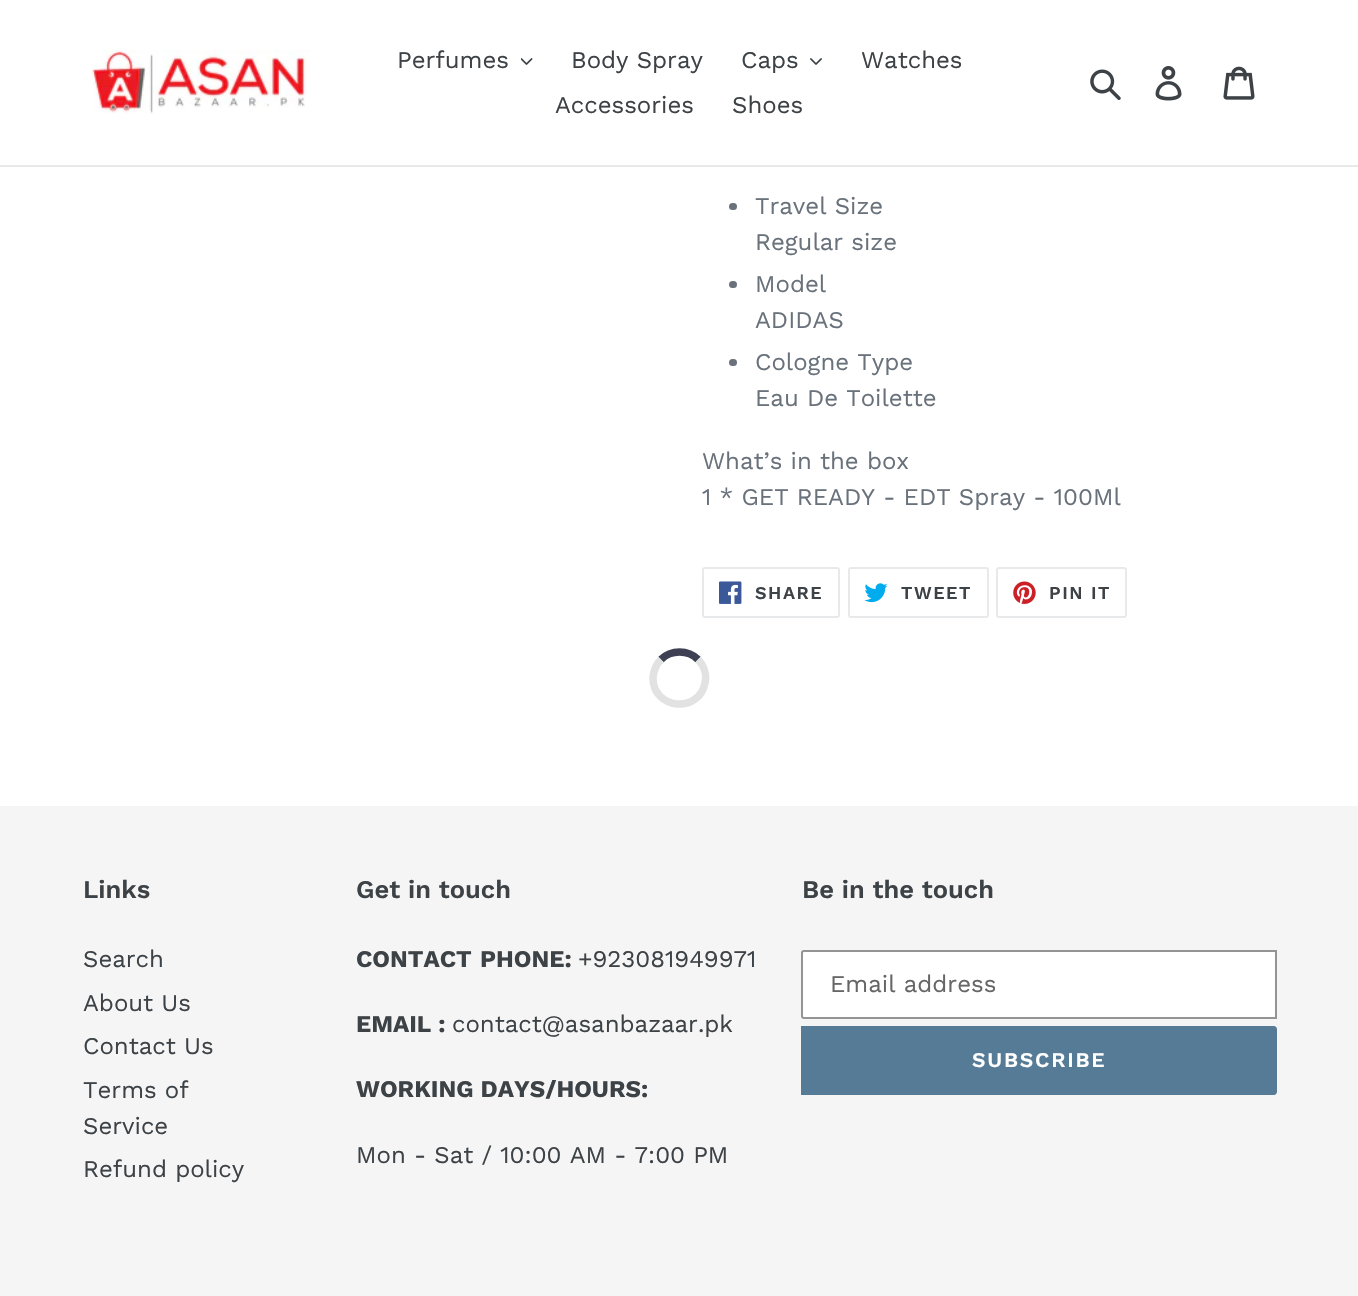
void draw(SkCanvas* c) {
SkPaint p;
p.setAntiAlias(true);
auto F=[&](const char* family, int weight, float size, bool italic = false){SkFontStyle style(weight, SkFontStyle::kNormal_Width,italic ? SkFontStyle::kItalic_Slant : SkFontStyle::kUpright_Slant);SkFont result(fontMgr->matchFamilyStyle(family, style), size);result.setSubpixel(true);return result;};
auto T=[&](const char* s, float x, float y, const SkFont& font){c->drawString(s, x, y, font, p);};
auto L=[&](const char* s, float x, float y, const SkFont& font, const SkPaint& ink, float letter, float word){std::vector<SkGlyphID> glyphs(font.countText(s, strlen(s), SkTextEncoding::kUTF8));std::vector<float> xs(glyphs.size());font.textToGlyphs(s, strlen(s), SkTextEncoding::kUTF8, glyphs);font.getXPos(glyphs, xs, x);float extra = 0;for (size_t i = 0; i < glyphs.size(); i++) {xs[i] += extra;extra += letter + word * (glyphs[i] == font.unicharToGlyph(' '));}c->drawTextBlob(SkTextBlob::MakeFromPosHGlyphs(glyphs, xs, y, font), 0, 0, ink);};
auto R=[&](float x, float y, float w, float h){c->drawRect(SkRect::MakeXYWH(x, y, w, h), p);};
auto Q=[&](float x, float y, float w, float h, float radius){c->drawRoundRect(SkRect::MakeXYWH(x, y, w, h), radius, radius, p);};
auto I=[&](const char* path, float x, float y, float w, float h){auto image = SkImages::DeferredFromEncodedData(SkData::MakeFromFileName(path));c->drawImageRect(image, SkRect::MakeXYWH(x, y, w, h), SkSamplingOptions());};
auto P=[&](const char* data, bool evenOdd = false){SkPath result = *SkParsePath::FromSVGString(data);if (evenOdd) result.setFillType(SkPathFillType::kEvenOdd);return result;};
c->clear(0xffffffff);
p.setColor(0xffe8e9eb);
R(0,165,1358,2);
I("1.png",91,49,219,65);
auto f1 = F("Work Sans",400,24);
p.setColor(0xff3d4246);
T("Perfumes",397,68,f1);
I("2.png",521,58,12,7);
T("Body Spray",571,68,f1);
T("Caps",741,68,f1);
I("3.png",810,58,12,7);
T("Watches",861,68,f1);
T("Accessories",555,113,f1);
T("Shoes",732,113,f1);
I("4.png",1090,69,31,31);
I("5.png",1155,66,27,35);
I("6.png",1223,66,32,34);
p.setColor(0xff69727b);
Q(729,203,8,7,3.5);
T("Travel Size",755,214,f1);
T("Regular size",755,250,f1);
Q(729,281,8,7,3.5);
T("Model",755,292,f1);
T("ADIDAS",755,328,f1);
Q(729,359,8,7,3.5);
T("Cologne Type",755,370,f1);
T("Eau De Toilette",755,406,f1);
T("What’s in the box",702,469,f1);
T("1 * GET READY - EDT Spray - 100Ml",702,505,f1);
p.setStroke(true);
p.setStrokeWidth(2);
p.setColor(0xffe8e9eb);
c->drawRoundRect(SkRect::MakeXYWH(703,568,136,49),2,2,p);
I("7.png",719,581,23,23);
auto f2 = F("Work Sans",600,18);
p.setStroke(false);
p.setColor(0xff3d4246);
L("SHARE",755,599,f2,p,1.5,0);
p.setStroke(true);
p.setColor(0xffe8e9eb);
c->drawRoundRect(SkRect::MakeXYWH(849,568,139,49),2,2,p);
I("8.png",864,583,24,20);
p.setStroke(false);
p.setColor(0xff3d4246);
L("TWEET",901,599,f2,p,1.5,0);
p.setStroke(true);
p.setColor(0xffe8e9eb);
c->drawRoundRect(SkRect::MakeXYWH(997,568,129,49),2,2,p);
I("9.png",1013,581,23,23);
p.setStroke(false);
p.setColor(0xff3d4246);
L("PIN IT",1049,599,f2,p,1.5,0);
p.setStroke(true);
p.setStrokeWidth(7.5);
p.setColor(0xff3d4153);
c->drawPath(P("M661 659.5c10-10 27-10 37 0"),p);
p.setColor(0xffe2e2e2);
c->drawPath(P("M698 659.5c6 6 9 15 7 23.5c-6 31-52 26.5-52-5c.5-7 3-13.5 8-18.5"),p);
p.setStroke(false);
p.setColor(0xfff5f5f5);
R(0,806,1358,490);
auto f3 = F("Work Sans",600,25.5);
p.setColor(0xff3d4246);
T("Links",83,898,f3);
T("Search",83,967,f1);
T("About Us",83,1011,f1);
T("Contact Us",83,1054,f1);
T("Terms of",83,1098,f1);
T("Service",83,1134,f1);
T("Refund policy",83,1177,f1);
T("Get in touch",356,898,f3);
auto f4 = F("Work Sans",700,24);
T("CONTACT",356,967,f4);
T("PHONE:",480,967,f4);
T("+923081949971",578,967,f1);
T("EMAIL :",356,1032,f4);
T("contact@asanbazaar.pk",452,1032,f1);
T("WORKING DAYS/HOURS:",356,1097,f4);
T("Mon - Sat / 10:00 AM - 7:00 PM",356,1163,f1);
T("Be in the touch",802,898,f3);
p.setColor(0xffffffff);
c->drawPath(P("M804 951h472v67h-472c-1 0-2-1-2-2v-63c0-1 1-2 2-2z"),p);
p.setStroke(true);
p.setStrokeWidth(2);
p.setColor(0xff949494);
c->drawPath(P("M804 951h472v67h-472c-1 0-2-1-2-2v-63c0-1 1-2 2-2z"),p);
p.setStroke(false);
p.setColor(0xff666666);
T("Email address",830,992,f1);
p.setColor(0xff557b97);
c->drawPath(P("M801 1026h473c1.5 0 3 1.5 3 3v63c0 1.5-1.5 3-3 3h-473z"),p);
auto f5 = F("Work Sans",600,21);
p.setColor(0xffffffff);
L("SUBSCRIBE",972,1067,f5,p,1.75,0);
}
